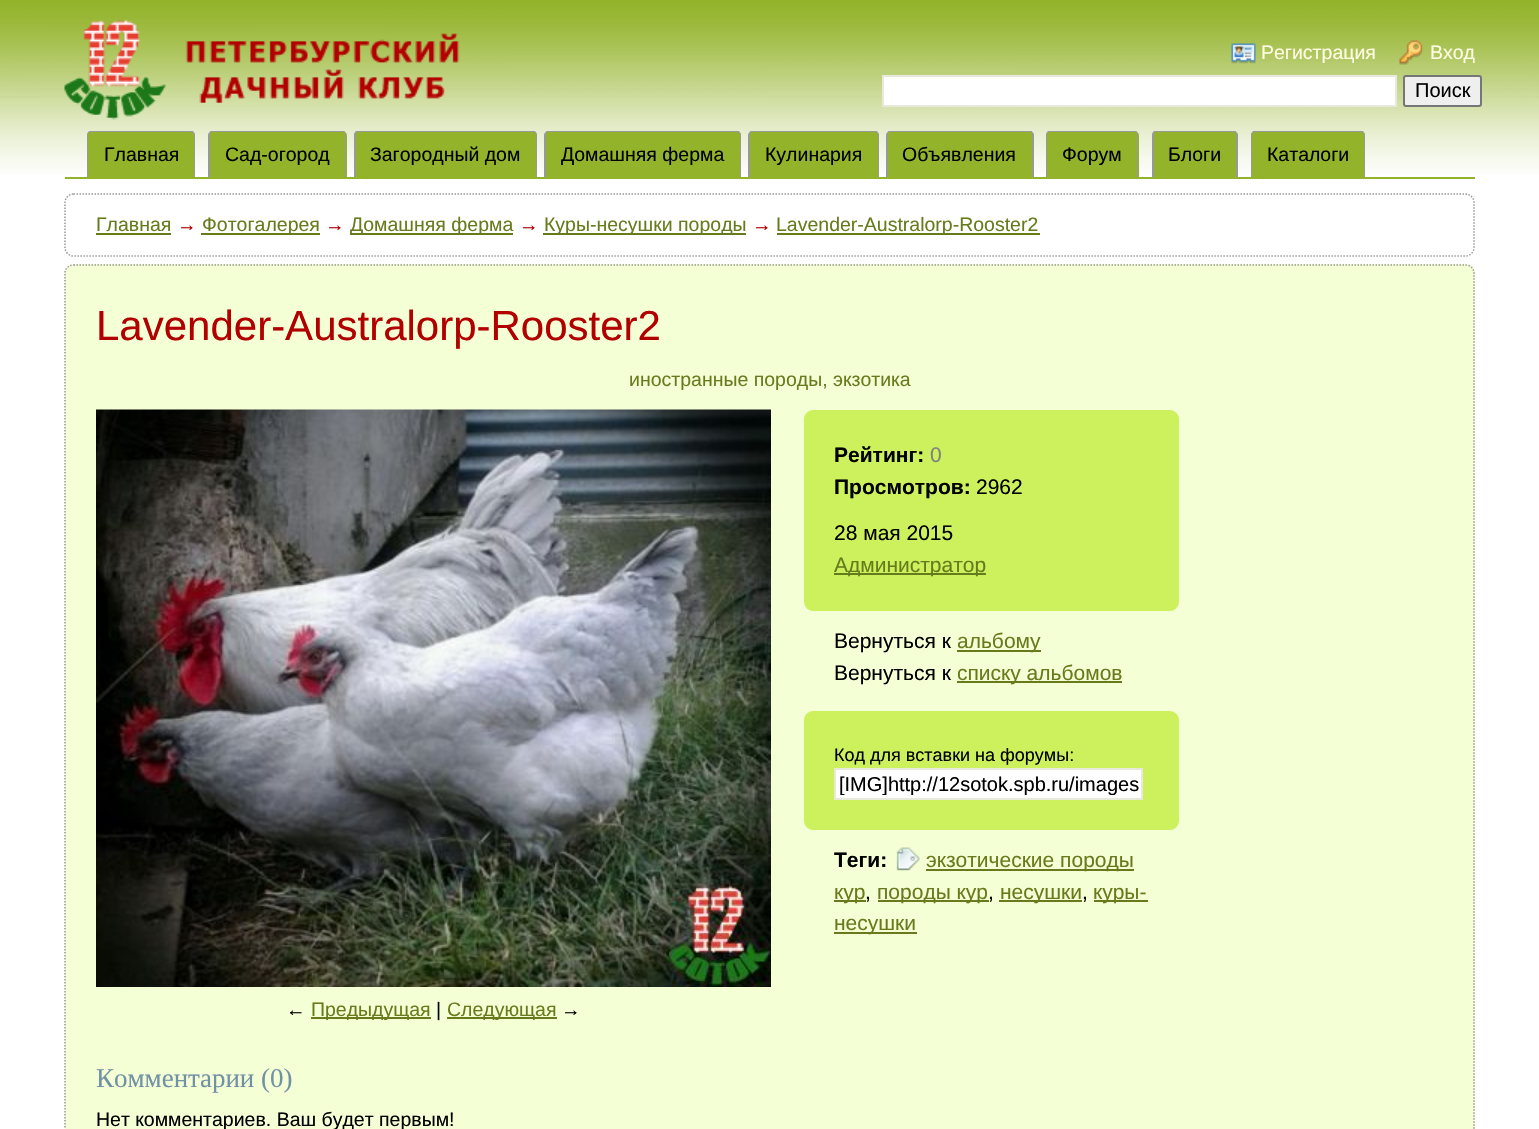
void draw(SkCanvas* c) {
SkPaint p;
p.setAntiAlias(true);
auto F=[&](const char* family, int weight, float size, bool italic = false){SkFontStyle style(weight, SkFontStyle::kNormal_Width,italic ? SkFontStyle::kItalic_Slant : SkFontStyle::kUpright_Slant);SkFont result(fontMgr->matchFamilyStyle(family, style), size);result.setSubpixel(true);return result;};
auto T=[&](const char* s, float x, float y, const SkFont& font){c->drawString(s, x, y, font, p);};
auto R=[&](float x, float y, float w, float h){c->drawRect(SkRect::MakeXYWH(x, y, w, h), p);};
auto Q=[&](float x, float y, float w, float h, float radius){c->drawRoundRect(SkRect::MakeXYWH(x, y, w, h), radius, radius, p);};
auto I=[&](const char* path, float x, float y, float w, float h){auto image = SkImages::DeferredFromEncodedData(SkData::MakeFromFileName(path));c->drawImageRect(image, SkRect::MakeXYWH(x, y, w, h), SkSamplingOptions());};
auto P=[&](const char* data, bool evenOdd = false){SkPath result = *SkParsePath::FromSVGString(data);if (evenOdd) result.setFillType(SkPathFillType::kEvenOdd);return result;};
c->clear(0xffffffff);
I("1.png",0,0,1539,174);
I("2.png",64,20,396,100);
I("3.png",1231,43,25,21);
auto f1 = F("Liberation Sans",400,19.5);
p.setColor(0xfffffde3);
T("Регистрация",1261,59,f1);
I("4.png",1399,40,24,25);
T("Вход",1430,59,f1);
p.setColor(0xffffffff);
c->drawRect(SkRect::MakeXYWH(883,76,513,30),p);
p.setStroke(true);
p.setStrokeWidth(2);
p.setColor(0xffe9e8dc);
c->drawRect(SkRect::MakeXYWH(883,76,513,30),p);
p.setStroke(false);
p.setColor(0xffefefef);
c->drawRoundRect(SkRect::MakeXYWH(1404,76,77,30),2,2,p);
p.setStroke(true);
p.setColor(0xff767676);
c->drawRoundRect(SkRect::MakeXYWH(1404,76,77,30),2,2,p);
auto f2 = F("Liberation Sans",400,20);
p.setStroke(false);
p.setColor(0xff000000);
T("Поиск",1415,97,f2);
p.setColor(0xff93b32a);
R(65,177,1410,2);
c->drawPath(P("M92 131h98c3 0 5 2 5 5v41h-108v-41c0-3 2-5 5-5z"),p);
c->save();
c->clipRect(SkRect::MakeXYWH(65,131,1410,46));
p.setColor(0xff999999);
c->drawPath(P("M92 130h98c3 0 5 3 5 5v42h-108v-42c0-2 2-5 5-5zm0 2h98c2 0 4 1 4 3v42h-106v-42c0-2 2-3 4-3z",true),p);
c->restore();
p.setColor(0xff000000);
T("Главная",104,161,f1);
p.setColor(0xff93b32a);
c->drawPath(P("M214 131h128c3 0 5 2 5 5v41h-138v-41c0-3 2-5 5-5z"),p);
c->save();
c->clipRect(SkRect::MakeXYWH(65,131,1410,46));
p.setColor(0xff999999);
c->drawPath(P("M213 130h129c2 0 4 3 4 5v42h-138v-42c0-2 3-5 5-5zm0 2h129c2 0 3 1 3 3v42h-135v-42c0-2 1-3 3-3z",true),p);
c->restore();
p.setColor(0xff000000);
T("Сад-огород",225,161,f1);
p.setColor(0xff93b32a);
c->drawPath(P("M359 131h173c3 0 5 2 5 5v41h-183v-41c0-3 2-5 5-5z"),p);
c->save();
c->clipRect(SkRect::MakeXYWH(65,131,1410,46));
p.setColor(0xff999999);
c->drawPath(P("M358 130h174c3 0 5 3 5 5v42h-183v-42c0-2 2-5 4-5zm0 2h174c2 0 4 1 4 3v42h-180v-42c0-2 1-3 2-3z",true),p);
c->restore();
p.setColor(0xff000000);
T("Загородный дом",370,161,f1);
p.setColor(0xff93b32a);
c->drawPath(P("M550 131h186c3 0 5 2 5 5v41h-196v-41c0-3 2-5 5-5z"),p);
c->save();
c->clipRect(SkRect::MakeXYWH(65,131,1410,46));
p.setColor(0xff999999);
c->drawPath(P("M549 130h187c3 0 5 3 5 5v42h-197v-42c0-2 3-5 5-5zm0 2h187c2 0 4 1 4 3v42h-194v-42c0-2 1-3 3-3z",true),p);
c->restore();
p.setColor(0xff000000);
T("Домашняя ферма",561,161,f1);
p.setColor(0xff93b32a);
c->drawPath(P("M754 131h120c3 0 5 2 5 5v41h-130v-41c0-3 2-5 5-5z"),p);
c->save();
c->clipRect(SkRect::MakeXYWH(65,131,1410,46));
p.setColor(0xff999999);
c->drawPath(P("M753 130h121c3 0 5 3 5 5v42h-131v-42c0-2 3-5 5-5zm0 2h121c2 0 4 1 4 3v42h-128v-42c0-2 1-3 3-3z",true),p);
c->restore();
p.setColor(0xff000000);
T("Кулинария",765,161,f1);
p.setColor(0xff93b32a);
c->drawPath(P("M892 131h137c3 0 5 2 5 5v41h-147v-41c0-3 2-5 5-5z"),p);
c->save();
c->clipRect(SkRect::MakeXYWH(65,131,1410,46));
p.setColor(0xff999999);
c->drawPath(P("M891 130h138c2 0 5 3 5 5v42h-148v-42c0-2 3-5 5-5zm0 2h138c2 0 3 1 3 3v42h-144v-42c0-2 1-3 3-3z",true),p);
c->restore();
p.setColor(0xff000000);
T("Объявления",902,161,f1);
p.setColor(0xff93b32a);
c->drawPath(P("M1051 131h83c3 0 5 2 5 5v41h-93v-41c0-3 2-5 5-5z"),p);
c->save();
c->clipRect(SkRect::MakeXYWH(65,131,1410,46));
p.setColor(0xff999999);
c->drawPath(P("M1050 130h84c2 0 4 3 4 5v42h-92v-42c0-2 2-5 4-5zm0 2h84c2 0 3 1 3 3v42h-90v-42c0-2 1-3 3-3z",true),p);
c->restore();
p.setColor(0xff000000);
T("Форум",1062,161,f1);
p.setColor(0xff93b32a);
c->drawPath(P("M1157 131h76c3 0 5 2 5 5v41h-86v-41c0-3 2-5 5-5z"),p);
c->save();
c->clipRect(SkRect::MakeXYWH(65,131,1410,46));
p.setColor(0xff999999);
c->drawPath(P("M1156 130h77c2 0 5 3 5 5v42h-86v-42c0-2 2-5 4-5zm0 2h77c2 0 3 1 3 3v42h-82v-42c0-2 1-3 2-3z",true),p);
c->restore();
p.setColor(0xff000000);
T("Блоги",1168,161,f1);
p.setColor(0xff93b32a);
c->drawPath(P("M1256 131h104c3 0 5 2 5 5v41h-114v-41c0-3 2-5 5-5z"),p);
c->save();
c->clipRect(SkRect::MakeXYWH(65,131,1410,46));
p.setColor(0xff999999);
c->drawPath(P("M1256 130h104c3 0 5 3 5 5v42h-114v-42c0-2 2-5 5-5zm0 2h104c2 0 4 1 4 3v42h-112v-42c0-2 2-3 4-3z",true),p);
c->restore();
p.setColor(0xff000000);
T("Каталоги",1267,161,f1);
p.setStroke(true);
p.setStrokeWidth(1.5);
p.setColor(0xff999999);
p.setPathEffect(SkDashPathEffect::Make({{1.5f,1.5f}}, 0));
c->drawPath(P("M73.5 194h1392c4.5 0 8.5 4 8.5 8.5v45c0 4.5-4 8.5-8.5 8.5h-1392c-4.5 0-8.5-4-8.5-8.5v-45c0-4.5 4-8.5 8.5-8.5z"),p);
p.setPathEffect(nullptr);
p.setStroke(false);
p.setColor(0xff667c1c);
T("Главная",96,231,f1);
R(96,233,75,2);
p.setColor(0xffb20000);
T("→",177,231,f1);
p.setColor(0xff667c1c);
R(201,233,119,2);
T("Фотогалерея",202,231,f1);
p.setColor(0xffb20000);
T("→",325,231,f1);
p.setColor(0xff667c1c);
R(350,233,163,2);
T("Домашняя ферма",350,231,f1);
p.setColor(0xffb20000);
T("→",519,231,f1);
p.setColor(0xff667c1c);
R(543,233,203,2);
T("Куры-несушки породы",544,231,f1);
p.setColor(0xffb20000);
T("→",752,231,f1);
p.setColor(0xff667c1c);
R(777,233,263,2);
T("Lavender-Australorp-Rooster2",776,231,f1);
p.setColor(0xfff5ffd5);
Q(65,264,1410,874,9);
p.setStroke(true);
p.setColor(0xff999999);
p.setPathEffect(SkDashPathEffect::Make({{1.5f,1.5f}}, 0));
c->drawPath(P("M73.5 265h1392c4.5 0 8.5 3.5 8.5 8v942c0 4.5-4 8-8.5 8h-1392c-4.5 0-8.5-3.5-8.5-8v-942c0-4.5 4-8 8.5-8z"),p);
p.setPathEffect(nullptr);
auto f3 = F("Liberation Sans",400,42);
p.setStroke(false);
p.setColor(0xffb20000);
T("Lavender-Australorp-Rooster2",96,340,f3);
p.setColor(0xff667c1c);
T("иностранные породы, экзотика",629,386,f1);
p.setColor(0xffcdf05d);
Q(804,410,375,201,9);
auto f4 = F("Liberation Sans",700,21);
p.setColor(0xff000000);
T("Рейтинг:",834,462,f4);
auto f5 = F("Liberation Sans",400,21);
p.setColor(0xff808080);
T("0",930,462,f5);
p.setColor(0xff000000);
T("Просмотров:",834,494,f4);
T("2962",976,494,f5);
T("28 мая 2015",834,540,f5);
p.setColor(0xff667c1c);
R(834,573,152,2);
T("Администратор",834,572,f5);
p.setColor(0xff000000);
T("Вернуться к",834,648,f5);
p.setColor(0xff667c1c);
R(957,650,84,2);
T("альбому",957,648,f5);
p.setColor(0xff000000);
T("Вернуться к",834,680,f5);
p.setColor(0xff667c1c);
R(957,681,165,2);
T("списку альбомов",957,680,f5);
p.setColor(0xffcdf05d);
Q(804,711,375,119,9);
auto f6 = F("Liberation Sans",400,18);
p.setColor(0xff000000);
T("Код для вставки на форумы:",834,761,f6);
p.setColor(0xffffffff);
c->drawRect(SkRect::MakeXYWH(835,769,307,30),p);
p.setStroke(true);
p.setStrokeWidth(2);
p.setColor(0xffe9e8dc);
c->drawRect(SkRect::MakeXYWH(835,769,307,30),p);
c->save();
c->clipRect(SkRect::MakeXYWH(839,773,300,22));
p.setStroke(false);
p.setColor(0xff000000);
T("[IMG]http://12sotok.spb.ru/images",839,791,f2);
c->restore();
T("Теги:",834,867,f4);
I("5.png",896,847,24,24);
p.setColor(0xff667c1c);
R(926,869,208,2);
T("экзотические породы",926,867,f5);
R(834,900,32,2);
T("кур",834,899,f5);
p.setColor(0xff000000);
T(",",865,899,f5);
p.setColor(0xff667c1c);
R(878,900,111,2);
T("породы кур",877,899,f5);
p.setColor(0xff000000);
T(",",988,899,f5);
p.setColor(0xff667c1c);
R(999,900,83,2);
T("несушки",1000,899,f5);
p.setColor(0xff000000);
T(",",1082,899,f5);
p.setColor(0xff667c1c);
R(1094,900,54,2);
T("куры-",1093,899,f5);
R(834,932,83,2);
T("несушки",834,930,f5);
I("6.png",96,409,675,578);
p.setColor(0xff000000);
T("←",286,1016,f1);
p.setColor(0xff667c1c);
R(311,1017,120,2);
T("Предыдущая",311,1016,f1);
p.setColor(0xff000000);
T("|",436,1016,f1);
p.setColor(0xff667c1c);
R(447,1017,110,2);
T("Следующая",447,1016,f1);
p.setColor(0xff000000);
T("→",561,1016,f1);
auto f7 = F("Liberation Serif",400,27);
p.setColor(0xff7192a6);
T("Комментарии (0)",96,1087,f7);
p.setColor(0xff000000);
T("Нет комментариев. Ваш будет первым!",96,1126,f1);
}
